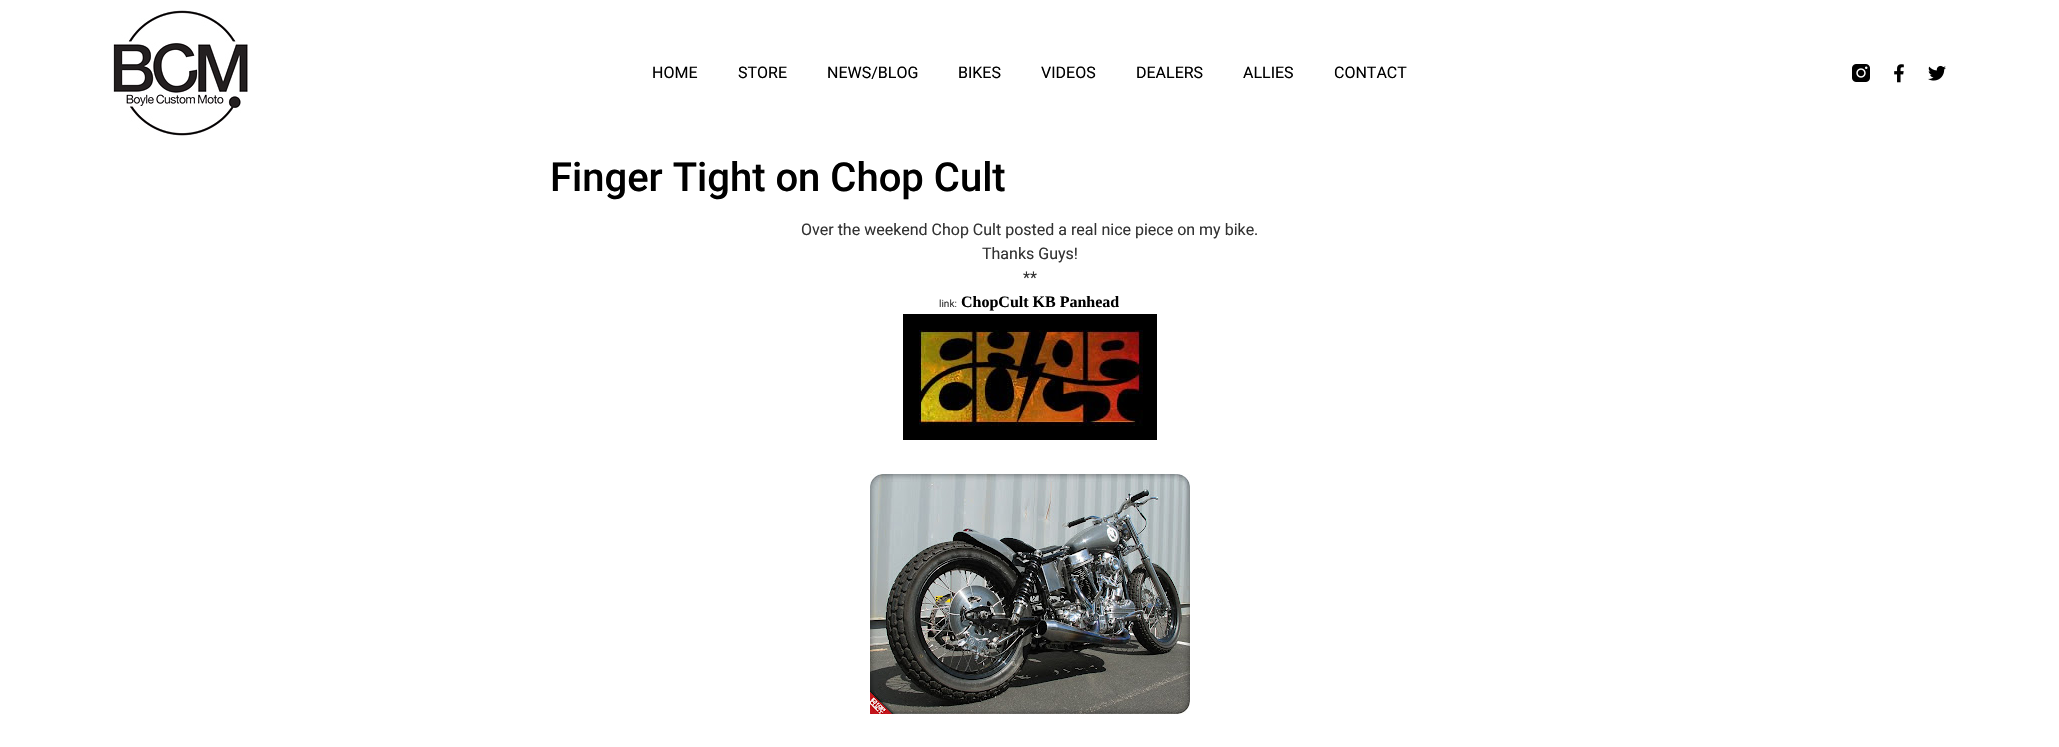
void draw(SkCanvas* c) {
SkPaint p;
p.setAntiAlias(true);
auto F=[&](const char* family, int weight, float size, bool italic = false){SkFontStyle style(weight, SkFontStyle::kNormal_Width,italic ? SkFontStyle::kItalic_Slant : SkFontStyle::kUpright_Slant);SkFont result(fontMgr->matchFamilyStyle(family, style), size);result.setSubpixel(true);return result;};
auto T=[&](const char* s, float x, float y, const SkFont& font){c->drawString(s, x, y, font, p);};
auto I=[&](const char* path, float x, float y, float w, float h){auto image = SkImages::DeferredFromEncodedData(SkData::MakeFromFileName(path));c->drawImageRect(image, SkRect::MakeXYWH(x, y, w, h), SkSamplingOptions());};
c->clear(0xffffffff);
I("1.png",113,10,135,126);
auto f1 = F("Roboto",400,16);
p.setColor(0xff000000);
T("HOME",652,78,f1);
T("STORE",738,78,f1);
T("NEWS/BLOG",827,78,f1);
T("BIKES",958,78,f1);
T("VIDEOS",1041,78,f1);
T("DEALERS",1136,78,f1);
T("ALLIES",1243,78,f1);
T("CONTACT",1334,78,f1);
I("2.png",1852,64,18,18);
I("3.png",1894,64,10,19);
I("4.png",1928,65,18,16);
auto f2 = F("Roboto",500,40);
T("Finger Tight on Chop Cult",550,191,f2);
p.setColor(0xff333333);
T("Over the weekend Chop Cult posted a real nice piece on my bike.",801,235,f1);
T("Thanks Guys!",982,259,f1);
T("**",1023,283,f1);
auto f3 = F("Roboto",400,10);
T("link:",939,307,f3);
auto f4 = F("Liberation Serif",700,16);
p.setColor(0xff000000);
T("ChopCult KB Panhead",961,307,f4);
I("5.png",903,314,254,126);
I("6.png",870,474,320,240);
}
